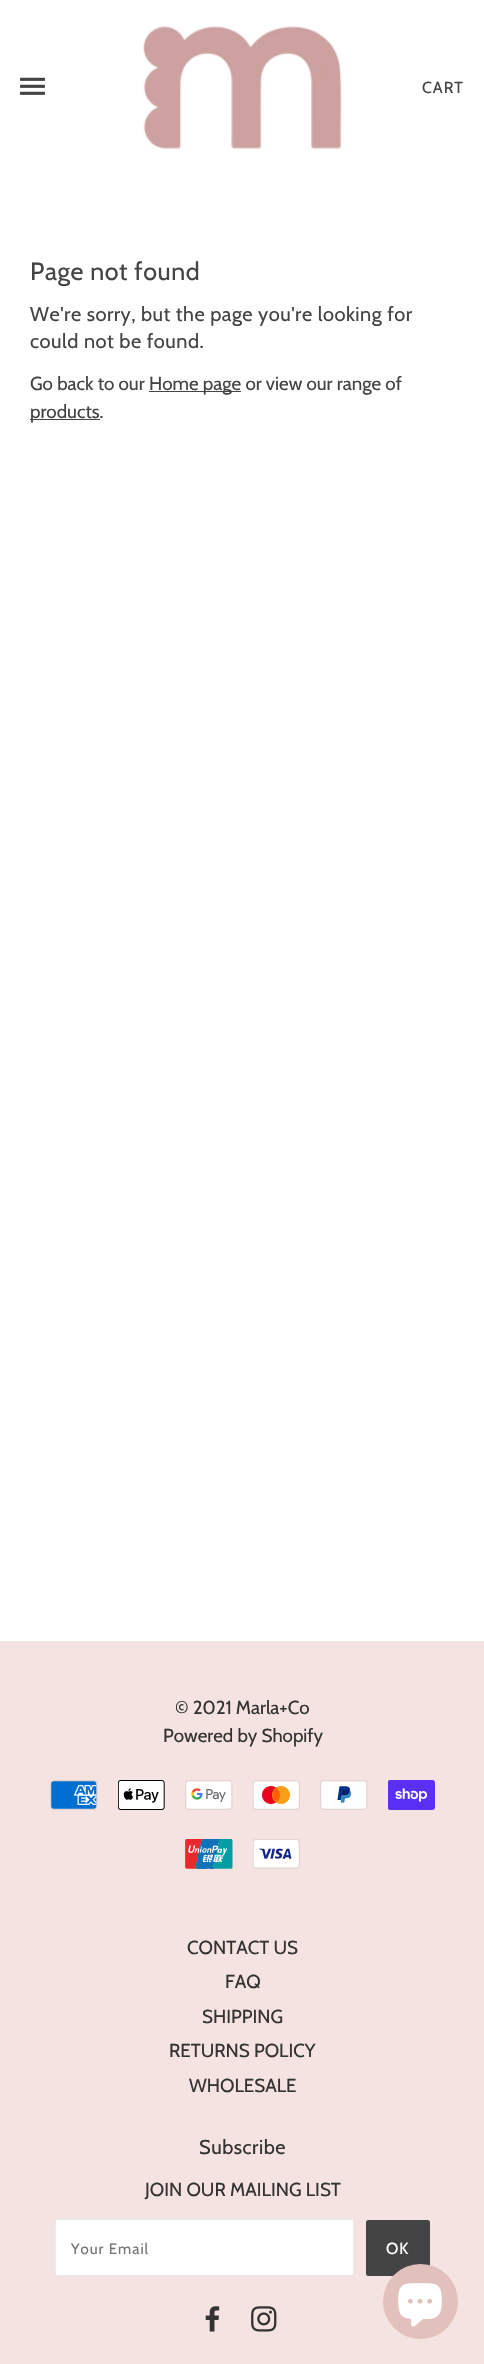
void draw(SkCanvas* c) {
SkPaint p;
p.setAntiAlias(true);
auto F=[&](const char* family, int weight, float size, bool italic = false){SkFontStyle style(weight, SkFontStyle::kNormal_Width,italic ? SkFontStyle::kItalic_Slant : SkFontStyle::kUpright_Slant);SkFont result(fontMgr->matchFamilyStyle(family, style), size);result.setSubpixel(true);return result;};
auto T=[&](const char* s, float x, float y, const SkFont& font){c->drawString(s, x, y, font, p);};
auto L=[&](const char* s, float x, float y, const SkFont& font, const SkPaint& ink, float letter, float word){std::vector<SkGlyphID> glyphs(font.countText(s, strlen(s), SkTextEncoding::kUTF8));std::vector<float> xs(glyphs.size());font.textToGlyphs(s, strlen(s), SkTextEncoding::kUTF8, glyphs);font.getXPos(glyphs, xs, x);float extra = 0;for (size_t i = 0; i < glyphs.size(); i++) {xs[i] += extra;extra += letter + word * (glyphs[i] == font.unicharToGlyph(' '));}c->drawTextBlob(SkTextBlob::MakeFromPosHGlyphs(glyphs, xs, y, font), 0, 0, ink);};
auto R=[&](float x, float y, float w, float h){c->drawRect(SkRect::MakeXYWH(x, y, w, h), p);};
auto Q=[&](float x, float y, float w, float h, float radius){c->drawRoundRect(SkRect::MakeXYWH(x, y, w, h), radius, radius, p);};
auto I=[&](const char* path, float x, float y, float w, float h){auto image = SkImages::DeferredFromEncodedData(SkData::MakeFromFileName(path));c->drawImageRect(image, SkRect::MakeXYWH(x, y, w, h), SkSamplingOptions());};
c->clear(0xffffffff);
I("1.png",20,77,25,18);
I("2.png",143,26,199,123);
auto f1 = F("Cabin",400,16);
p.setColor(0xff444444);
L("CART",422,93,f1,p,1,0);
auto f2 = F("Cabin",400,25);
L("Page not found",30,280,f2,p,.6,0);
auto f3 = F("Cabin",400,20);
L("We're sorry, but the page you're looking for",30,321,f3,p,.5,0);
L("could not be found.",30,348,f3,p,.5,0);
auto f4 = F("Cabin",400,18.75);
T("Go back to our",30,390,f4);
R(149,391,92,1);
T("Home page or view our range of",149,390,f4);
R(30,419,70,1);
T("products.",30,418,f4);
p.setColor(0xfff5e3e1);
R(0,1641,484,723);
p.setColor(0xff333333);
T("© 2021 Marla+Co",175,1714,f4);
T("Powered by Shopify",163,1742,f4);
I("3.png",50,1780,48,30);
I("4.png",118,1780,47,30);
I("5.png",185,1780,48,30);
I("6.png",253,1780,47,30);
I("7.png",320,1780,48,30);
I("8.png",388,1780,47,30);
I("9.png",185,1839,48,30);
I("10.png",253,1839,47,30);
T("CONTACT US",187,1954,f4);
T("FAQ",225,1988,f4);
T("SHIPPING",202,2023,f4);
T("RETURNS POLICY",169,2057,f4);
T("WHOLESALE",189,2092,f4);
L("Subscribe",199,2154,f3,p,.5,0);
T("JOIN OUR MAILING LIST",145,2196,f4);
p.setColor(0xffffffff);
c->drawRoundRect(SkRect::MakeXYWH(55.5,2219.5,298,56),2,2,p);
p.setStroke(true);
p.setStrokeWidth(1);
p.setColor(0xffebebeb);
c->drawRoundRect(SkRect::MakeXYWH(55.5,2219.5,298,56),2,2,p);
auto f5 = F("Cabin",400,15);
p.setStroke(false);
p.setColor(0xff757575);
L("Your Email",71,2254,f5,p,1,0);
p.setColor(0xff444444);
Q(366,2220,64,56,2.5);
p.setColor(0xffffffff);
L("OK",386,2254,f1,p,1,0);
I("11.png",205,2306,15,26);
I("12.png",251,2306,26,26);
p.setColor(0xffe2c1bc);
c->drawCircle(420.5,2301.5,37.5,p);
I("13.png",398,2283,44,44);
}
